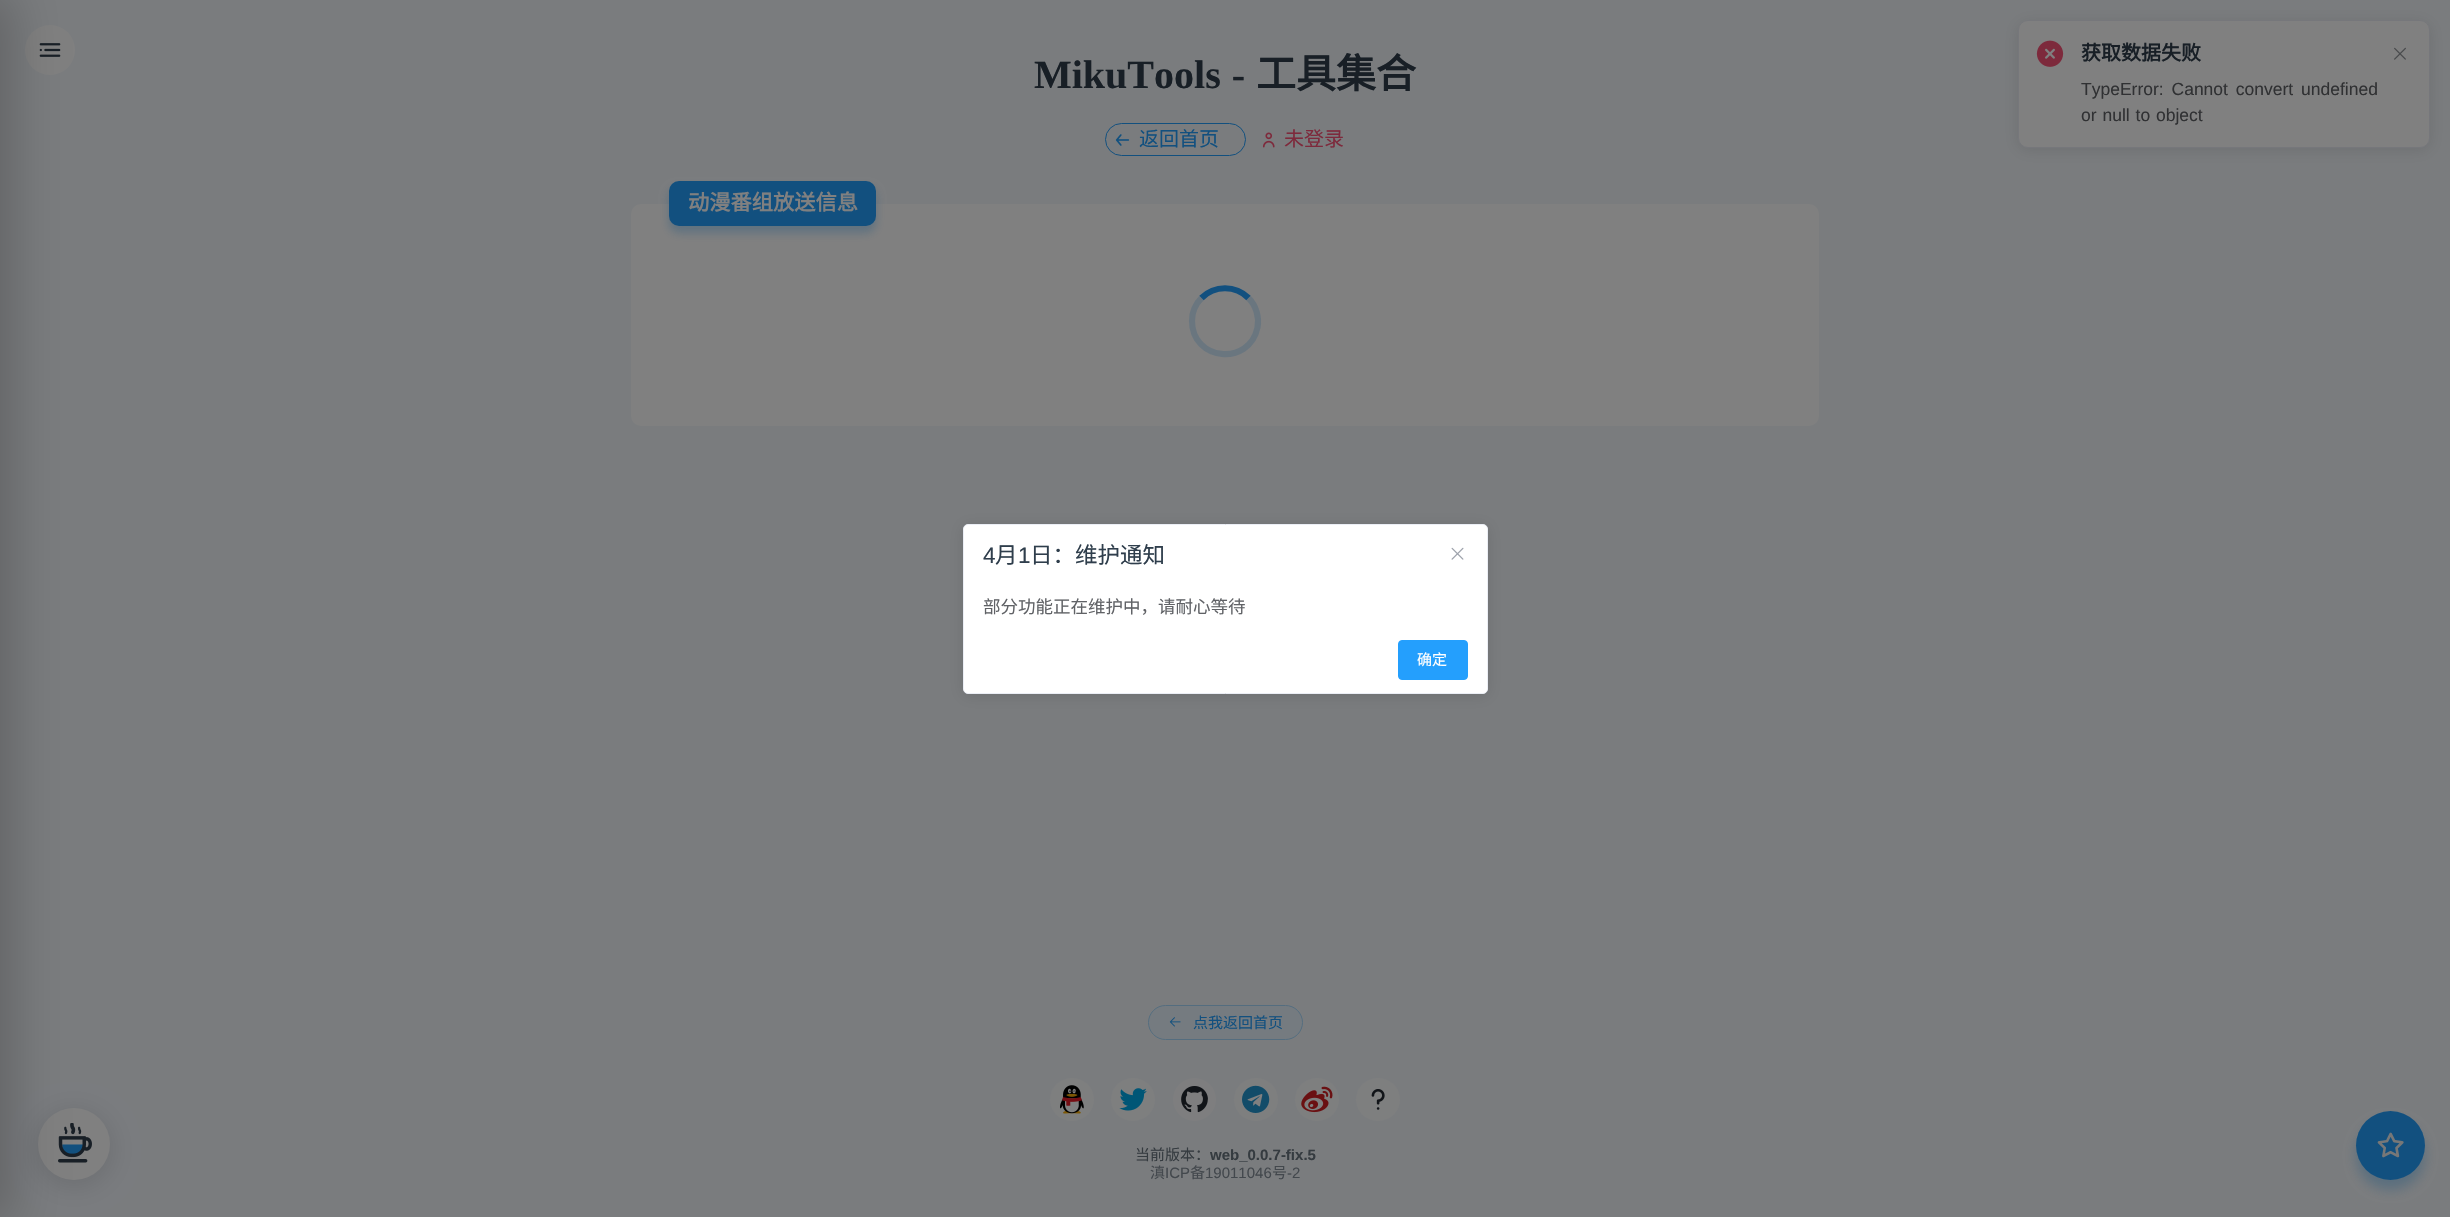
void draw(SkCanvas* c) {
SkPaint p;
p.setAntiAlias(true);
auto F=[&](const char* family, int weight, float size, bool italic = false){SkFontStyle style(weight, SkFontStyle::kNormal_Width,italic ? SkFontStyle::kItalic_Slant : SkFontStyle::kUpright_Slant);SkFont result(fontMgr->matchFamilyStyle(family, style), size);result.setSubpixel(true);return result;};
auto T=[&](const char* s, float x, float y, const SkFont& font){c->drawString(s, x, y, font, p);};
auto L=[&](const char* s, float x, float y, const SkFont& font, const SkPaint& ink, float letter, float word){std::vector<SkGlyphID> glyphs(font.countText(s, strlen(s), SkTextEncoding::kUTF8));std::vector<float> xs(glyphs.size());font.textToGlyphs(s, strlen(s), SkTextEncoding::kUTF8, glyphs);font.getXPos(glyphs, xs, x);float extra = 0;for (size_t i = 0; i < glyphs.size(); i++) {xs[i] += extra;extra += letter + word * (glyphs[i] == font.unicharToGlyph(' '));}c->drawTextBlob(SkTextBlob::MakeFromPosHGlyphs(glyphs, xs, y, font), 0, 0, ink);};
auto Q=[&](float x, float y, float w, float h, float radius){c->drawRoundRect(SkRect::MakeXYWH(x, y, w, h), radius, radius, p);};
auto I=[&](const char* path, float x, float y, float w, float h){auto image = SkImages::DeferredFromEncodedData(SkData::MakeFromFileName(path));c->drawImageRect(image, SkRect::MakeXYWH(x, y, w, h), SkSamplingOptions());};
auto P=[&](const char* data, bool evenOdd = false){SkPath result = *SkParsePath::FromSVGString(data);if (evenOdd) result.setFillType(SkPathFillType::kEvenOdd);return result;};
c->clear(0xff7a7c7e);
p.setColor(0xff808080);
c->drawCircle(50,50,25,p);
I("1.png",39,43,22,14);
p.setColor(0x1a000408);
p.setMaskFilter(SkMaskFilter::MakeBlur(kNormal_SkBlurStyle, 12.5));
c->drawRoundRect(SkRect::MakeXYWH(35,1110,78,78),39,39,p);
p.setMaskFilter(nullptr);
p.setColor(0xff808080);
c->drawCircle(74,1144,36,p);
I("11.png",58,1123,34,40);
p.setColor(0x33000000);
p.setMaskFilter(SkMaskFilter::MakeBlur(kNormal_SkBlurStyle, 25));
c->drawRect(SkRect::MakeXYWH(-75,-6,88,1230),p);
p.setMaskFilter(nullptr);
auto f1 = F("Liberation Serif",700,40);
p.setColor(0xff181f26);
L("MikuTools -",1034,88,f1,p,0,1);
auto f2 = F("Noto Sans CJK SC",700,40);
T("工具集合",1256,88,f2);
p.setStroke(true);
p.setStrokeWidth(1);
p.setColor(0xff12507f);
c->drawRoundRect(SkRect::MakeXYWH(1105.5,123.5,140,32),16,16,p);
I("2.png",1115,134,15,12);
auto f3 = F("Noto Sans CJK SC",400,20);
p.setStroke(false);
T("返回首页",1139,146,f3);
I("3.png",1262,132,13,16);
p.setColor(0xff7d2a3c);
T("未登录",1284,146,f3);
p.setColor(0xff808080);
Q(631,204,1188,222,10);
p.setColor(0x4d12507f);
p.setMaskFilter(SkMaskFilter::MakeBlur(kNormal_SkBlurStyle, 5));
c->drawRoundRect(SkRect::MakeXYWH(669,188,207,45),10,10,p);
p.setMaskFilter(nullptr);
p.setColor(0xff12507f);
Q(669,181,207,45,10);
auto f4 = F("Noto Sans CJK SC",700,21.25);
p.setColor(0xff808080);
T("动漫番组放送信息",688,210,f4);
p.setStroke(true);
p.setStrokeWidth(6.2);
p.setColor(0xff12507f);
c->drawPath(P("M1201.5 298c13-13 34-13 47 0"),p);
p.setColor(0x3312507f);
c->drawPath(P("M1248.5 298c7.5 7.5 11 19 9 29.5c-8 39-65.5 33.5-65.5-6.5c0-8.5 3.5-17 9.5-23"),p);
p.setStroke(false);
p.setColor(0xff757b80);
c->drawRoundRect(SkRect::MakeXYWH(1148.5,1005.5,154,34),17,17,p);
p.setStroke(true);
p.setStrokeWidth(1);
p.setColor(0xff546d7f);
c->drawRoundRect(SkRect::MakeXYWH(1148.5,1005.5,154,34),17,17,p);
I("4.png",1169,1017,12,10);
auto f5 = F("Noto Sans CJK SC",400,15);
p.setStroke(false);
p.setColor(0xff12507f);
T("点我返回首页",1193,1028,f5);
p.setColor(0xa6808080);
Q(1050,1078,44,43,21.5);
I("5.png",1060,1085,24,29);
Q(1111,1078,44,43,21.5);
I("6.png",1119,1088,28,23);
p.setColor(0xff7e7e7f);
c->drawCircle(1194.5,1099.5,21.5,p);
I("7.png",1181,1086,27,27);
p.setColor(0xa6808080);
Q(1234,1078,44,43,21.5);
I("8.png",1242,1085,28,28);
Q(1295,1078,44,43,21.5);
I("9.png",1301,1086,32,27);
Q(1356,1078,44,43,21.5);
I("10.png",1371,1089,14,21);
p.setColor(0xff353b40);
T("当前版本：",1135,1160,f5);
auto f6 = F("Liberation Sans",700,15);
T("web_0.0.7-fix.5",1210,1160,f6);
p.setColor(0xff43484d);
T("滇",1150,1178,f5);
auto f7 = F("Liberation Sans",400,15);
T("ICP",1165,1178,f7);
T("备",1190,1178,f5);
T("19011046",1205,1178,f7);
T("号",1272,1178,f5);
T("-2",1287,1178,f7);
p.setColor(0x4d12507f);
p.setMaskFilter(SkMaskFilter::MakeBlur(kNormal_SkBlurStyle, 6));
c->drawRoundRect(SkRect::MakeXYWH(2356,1121,69,69),34.5,34.5,p);
p.setMaskFilter(nullptr);
p.setColor(0xff12507f);
c->drawCircle(2390.5,1145.5,34.5,p);
I("12.png",2377,1132,27,26);
p.setColor(0x1a000000);
p.setMaskFilter(SkMaskFilter::MakeBlur(kNormal_SkBlurStyle, 7.5));
c->drawRoundRect(SkRect::MakeXYWH(2018,23,412,127),10,10,p);
p.setMaskFilter(nullptr);
p.setColor(0xff808080);
c->drawRoundRect(SkRect::MakeXYWH(2018.5,20.5,411,127),9.5,9.5,p);
p.setStroke(true);
p.setColor(0xff76777b);
c->drawRoundRect(SkRect::MakeXYWH(2018.5,20.5,411,127),9.5,9.5,p);
I("13.png",2036,40,28,27);
auto f8 = F("Noto Sans CJK SC",700,20);
p.setStroke(false);
p.setColor(0xff181f26);
T("获取数据失败",2081,60,f8);
I("14.png",2394,47,12,13);
auto f9 = F("Liberation Sans",400,17.5);
p.setColor(0xff303133);
L("TypeError: Cannot convert undefined",2081,95,f9,p,0,3);
L("or null to object",2081,121,f9,p,0,1);
p.setColor(0x1a000000);
p.setMaskFilter(SkMaskFilter::MakeBlur(kNormal_SkBlurStyle, 7.5));
c->drawRoundRect(SkRect::MakeXYWH(963,526,525,170),5,5,p);
p.setMaskFilter(nullptr);
p.setColor(0xffffffff);
c->drawRoundRect(SkRect::MakeXYWH(963.5,524.5,524,169),4.5,4.5,p);
p.setStroke(true);
p.setColor(0xffebeef5);
c->drawRoundRect(SkRect::MakeXYWH(963.5,524.5,524,169),4.5,4.5,p);
auto f10 = F("Liberation Sans",400,22.5);
p.setStroke(false);
p.setColor(0xff2f3e4c);
T("4",983,563,f10);
auto f11 = F("Noto Sans CJK SC",400,22.5);
T("月",995,563,f11);
T("1",1018,563,f10);
T("日：维护通知",1030,563,f11);
I("15.png",1451,547,13,13);
auto f12 = F("Noto Sans CJK SC",400,17.5);
p.setColor(0xff606266);
T("部分功能正在维护中，请耐心等待",983,613,f12);
p.setColor(0xff249ffd);
c->drawRoundRect(SkRect::MakeXYWH(1398.5,640.5,69,39),3.5,3.5,p);
p.setStroke(true);
c->drawRoundRect(SkRect::MakeXYWH(1398.5,640.5,69,39),3.5,3.5,p);
p.setStroke(false);
p.setColor(0xffffffff);
T("确定",1417,665,f5);
}
